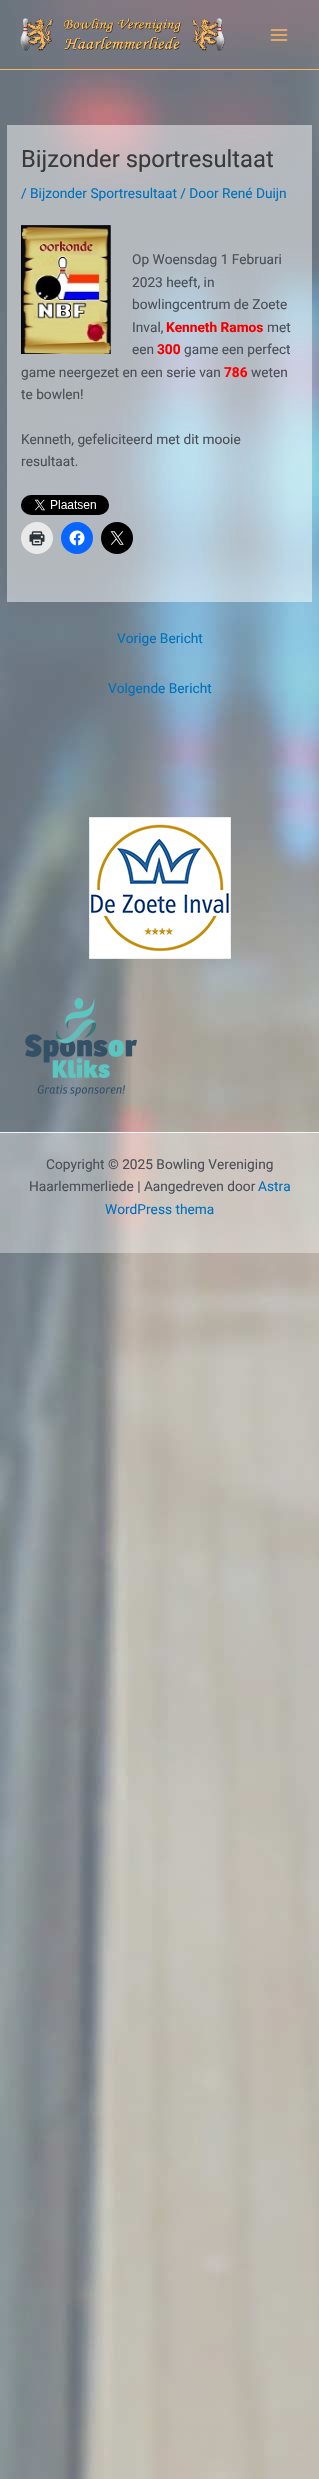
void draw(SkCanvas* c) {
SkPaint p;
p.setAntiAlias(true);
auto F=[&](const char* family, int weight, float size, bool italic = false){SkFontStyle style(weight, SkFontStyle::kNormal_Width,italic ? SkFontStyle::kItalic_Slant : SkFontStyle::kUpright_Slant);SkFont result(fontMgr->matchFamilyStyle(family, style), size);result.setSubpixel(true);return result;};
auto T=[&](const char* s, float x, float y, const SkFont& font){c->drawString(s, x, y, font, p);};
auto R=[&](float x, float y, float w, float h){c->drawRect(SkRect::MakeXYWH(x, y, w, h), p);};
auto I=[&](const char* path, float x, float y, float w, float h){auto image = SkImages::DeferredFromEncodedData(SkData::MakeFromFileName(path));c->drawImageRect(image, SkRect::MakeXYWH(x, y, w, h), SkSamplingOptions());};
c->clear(0xffffffff);
I("1.png",0,0,319,2479);
p.setColor(0xfff6b565);
R(0,69,319,1);
I("2.png",20,18,205,33);
I("3.png",270,29,18,12);
p.setColor(0x7dffffff);
R(7,125,305,477);
auto f1 = F("Roboto",400,23.75);
p.setColor(0xff3a3a3a);
T("Bijzonder sportresultaat",21,167,f1);
auto f2 = F("Roboto",400,13.7);
p.setColor(0xff0170b9);
T("/ Bijzonder Sportresultaat / Door René Duijn",21,198,f2);
I("4.png",21,225,90,129);
p.setColor(0xff4b4f58);
T("Op Woensdag 1 Februari",132,264,f2);
T("2023 heeft, in",132,287,f2);
T("bowlingcentrum de Zoete",132,309,f2);
T("Inval,",132,332,f2);
auto f3 = F("Roboto",700,13.7);
p.setColor(0xfff20000);
T("Kenneth Ramos",166,332,f3);
p.setColor(0xff4b4f58);
T("met",267,332,f2);
T("een",132,354,f2);
p.setColor(0xfff20000);
T("300",157,354,f3);
p.setColor(0xff4b4f58);
T("game een perfect",184,354,f2);
T("game neergezet en een serie van",21,377,f2);
p.setColor(0xffff0000);
T("786",224,377,f3);
p.setColor(0xff4b4f58);
T("weten",251,377,f2);
T("te bowlen!",21,399,f2);
T("Kenneth, gefeliciteerd met dit mooie",21,444,f2);
T("resultaat.",21,466,f2);
I("5.png",21,495,88,20);
p.setColor(0xffe9e9e9);
c->drawCircle(37,538,16,p);
I("6.png",29,531,16,15);
p.setColor(0xff0866ff);
c->drawCircle(77,538,16,p);
I("7.png",69,530,16,16);
p.setColor(0xff000000);
c->drawCircle(117,538,16,p);
I("8.png",110,531,14,14);
p.setColor(0xff0170b9);
T("Vorige Bericht",117,643,f2);
T("Volgende Bericht",108,693,f2);
I("9.png",89,817,142,142);
I("10.png",25,998,112,98);
p.setColor(0x5cffffff);
R(0,1133,319,120);
p.setColor(0xfff2f5f7);
R(0,1132,319,1);
p.setColor(0xff4b4f58);
T("Copyright © 2025 Bowling Vereniging",46,1169,f2);
T("Haarlemmerliede | Aangedreven door",29,1191,f2);
p.setColor(0xff0170b9);
T("Astra",258,1191,f2);
T("WordPress thema",105,1214,f2);
}
